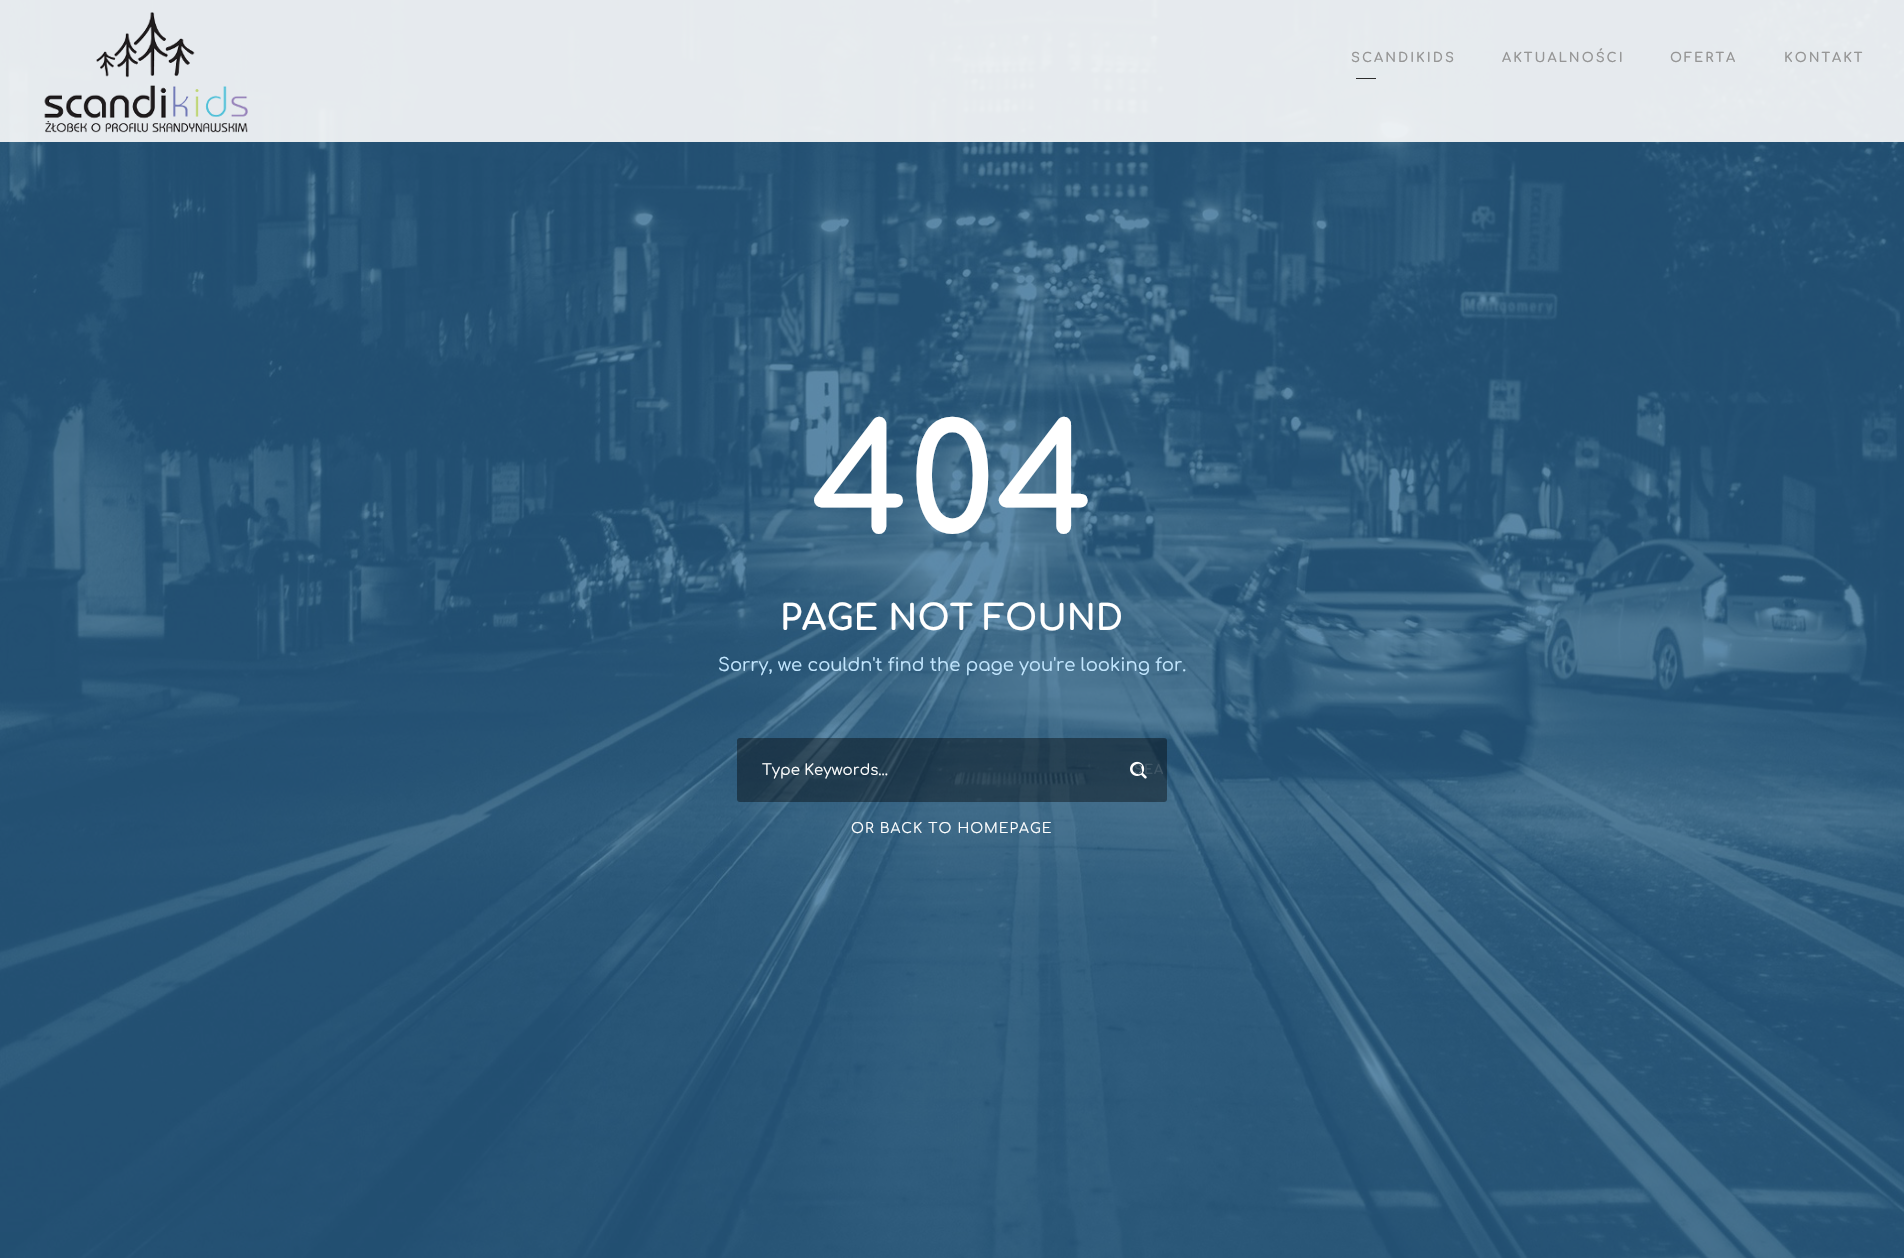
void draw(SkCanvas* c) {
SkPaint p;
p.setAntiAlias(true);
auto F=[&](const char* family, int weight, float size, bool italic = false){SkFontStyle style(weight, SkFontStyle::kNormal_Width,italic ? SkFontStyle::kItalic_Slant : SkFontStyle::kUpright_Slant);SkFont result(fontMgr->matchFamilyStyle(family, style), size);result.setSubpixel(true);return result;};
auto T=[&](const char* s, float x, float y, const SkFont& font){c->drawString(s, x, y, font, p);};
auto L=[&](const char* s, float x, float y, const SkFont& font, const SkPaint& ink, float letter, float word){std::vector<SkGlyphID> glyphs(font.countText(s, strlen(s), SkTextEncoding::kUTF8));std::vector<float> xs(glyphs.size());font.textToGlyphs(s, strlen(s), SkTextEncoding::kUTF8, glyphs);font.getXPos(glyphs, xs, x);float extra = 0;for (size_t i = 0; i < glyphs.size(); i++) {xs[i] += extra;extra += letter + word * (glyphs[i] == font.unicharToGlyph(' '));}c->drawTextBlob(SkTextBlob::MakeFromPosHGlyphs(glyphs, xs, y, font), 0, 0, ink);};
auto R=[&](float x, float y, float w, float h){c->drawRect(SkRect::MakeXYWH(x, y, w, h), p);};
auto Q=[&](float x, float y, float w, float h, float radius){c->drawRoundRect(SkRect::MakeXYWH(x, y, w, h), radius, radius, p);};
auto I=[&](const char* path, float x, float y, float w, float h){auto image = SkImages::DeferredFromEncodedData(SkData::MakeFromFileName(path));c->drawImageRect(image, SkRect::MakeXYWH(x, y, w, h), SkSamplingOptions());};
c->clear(0xff23618e);
I("2.png",0,0,1904,1258);
p.setColor(0xe6fbfbfb);
R(0,0,1904,142);
I("1.png",44,12,204,121);
auto f1 = F("Comfortaa",700,13);
p.setColor(0xff969696);
L("SCANDIKIDS",1351,62,f1,p,2,0);
L("AKTUALNOŚCI",1502,62,f1,p,2,0);
L("OFERTA",1670,62,f1,p,2,0);
L("KONTAKT",1784,62,f1,p,2,0);
p.setColor(0xff2d2d2d);
R(1356,78,20,1);
auto f2 = F("Comfortaa",700,150);
p.setColor(0xffffffff);
T("404",811,534,f2);
auto f3 = F("Comfortaa",700,35);
T("PAGE NOT FOUND",780,630,f3);
auto f4 = F("Comfortaa",400,18);
p.setColor(0xffc3e7ff);
T("Sorry, we couldn't find the page you're looking for.",718,671,f4);
p.setColor(0x66000000);
Q(737,738,430,64,3);
auto f5 = F("Comfortaa",400,15);
p.setColor(0xffffffff);
T("Type Keywords...",762,775,f5);
I("3.png",1130,761,17,18);
p.setColor(0xff3e5565);
L("SEA",1134,774,f1,p,1,0);
auto f6 = F("Comfortaa",400,14);
p.setColor(0xffffffff);
L("OR BACK TO HOMEPAGE",851,833,f6,p,1,0);
}
